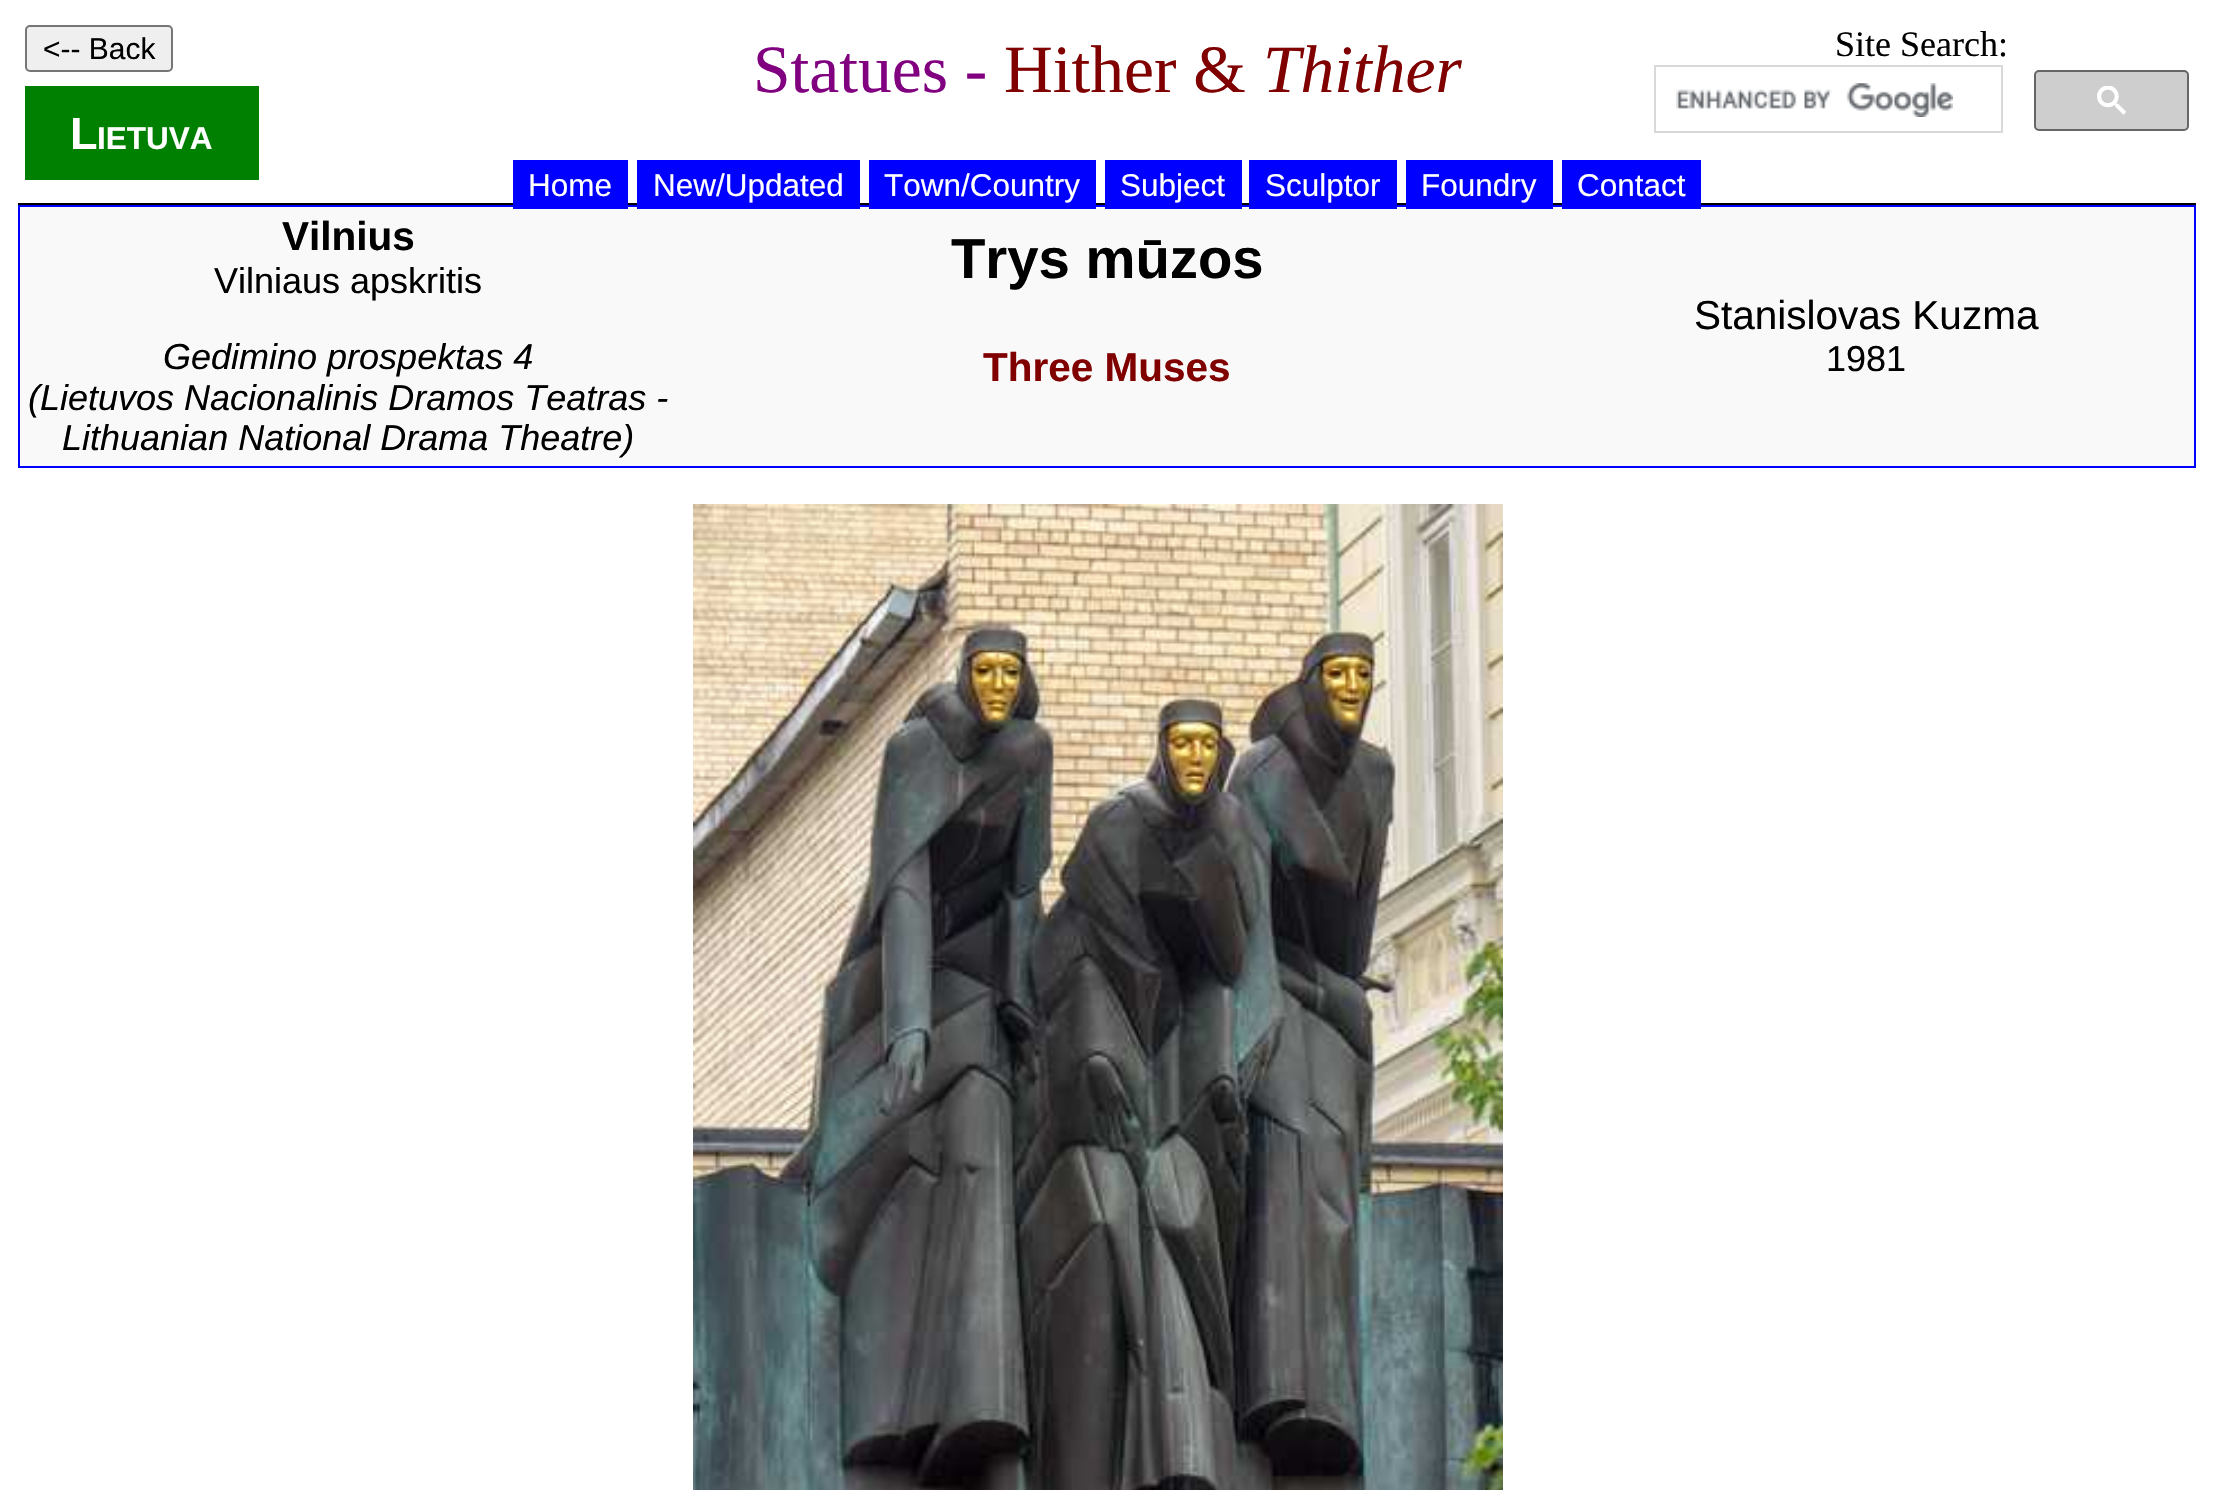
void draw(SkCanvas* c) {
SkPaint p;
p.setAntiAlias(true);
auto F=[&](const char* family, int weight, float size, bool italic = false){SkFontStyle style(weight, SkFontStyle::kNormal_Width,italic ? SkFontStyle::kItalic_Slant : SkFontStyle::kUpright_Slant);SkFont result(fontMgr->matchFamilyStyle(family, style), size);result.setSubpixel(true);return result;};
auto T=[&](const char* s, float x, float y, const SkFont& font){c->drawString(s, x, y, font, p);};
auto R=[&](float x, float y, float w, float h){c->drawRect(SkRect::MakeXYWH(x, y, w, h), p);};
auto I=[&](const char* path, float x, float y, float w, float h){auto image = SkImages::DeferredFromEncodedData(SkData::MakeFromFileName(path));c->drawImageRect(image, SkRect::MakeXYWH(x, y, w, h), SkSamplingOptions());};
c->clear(0xffffffff);
p.setColor(0xffefefef);
c->drawRoundRect(SkRect::MakeXYWH(26,26,146,45),4,4,p);
p.setStroke(true);
p.setStrokeWidth(2);
p.setColor(0xff767676);
c->drawRoundRect(SkRect::MakeXYWH(26,26,146,45),4,4,p);
auto f1 = F("Liberation Sans",400,30);
p.setStroke(false);
p.setColor(0xff000000);
T("<-- Back",43,59,f1);
p.setColor(0xff008000);
R(25,86,234,94);
auto f2 = F("Liberation Sans",700,45);
p.setColor(0xffffffff);
T("L",70,149,f2);
auto f3 = F("Liberation Sans",700,31.5);
T("IETUVA",97,149,f3);
auto f4 = F("Liberation Serif",400,67.5);
p.setColor(0xff800080);
T("Statues -",753,92,f4);
p.setColor(0xff800000);
T("Hither &",1004,92,f4);
auto f5 = F("Liberation Serif",400,67.5,true);
T("Thither",1263,92,f5);
auto f6 = F("Liberation Serif",400,36);
p.setColor(0xff000000);
T("Site Search:",1835,56,f6);
p.setStroke(true);
p.setColor(0xffd9d9d9);
c->drawRect(SkRect::MakeXYWH(1655,66,347,66),p);
I("1.png",1676,83,277,34);
p.setStroke(false);
p.setColor(0xffcecece);
c->drawRoundRect(SkRect::MakeXYWH(2035,71,153,59),4,4,p);
p.setStroke(true);
p.setColor(0xff666666);
c->drawRoundRect(SkRect::MakeXYWH(2035,71,153,59),4,4,p);
I("2.png",2097,86,29,29);
p.setStroke(false);
p.setColor(0xff000000);
R(18,203,2178,2);
p.setColor(0xfff9f9f9);
c->drawRect(SkRect::MakeXYWH(19,206,2176,261),p);
p.setStroke(true);
p.setColor(0xff0000ff);
c->drawRect(SkRect::MakeXYWH(19,206,2176,261),p);
p.setStroke(false);
R(513,160,115,49);
auto f7 = F("Liberation Sans",400,31.5);
p.setColor(0xffffffff);
T("Home",528,196,f7);
p.setColor(0xff0000ff);
R(637,160,223,49);
p.setColor(0xffffffff);
T("New/Updated",653,196,f7);
p.setColor(0xff0000ff);
R(869,160,227,49);
p.setColor(0xffffffff);
T("Town/Country",884,196,f7);
p.setColor(0xff0000ff);
R(1105,160,137,49);
p.setColor(0xffffffff);
T("Subject",1120,196,f7);
p.setColor(0xff0000ff);
R(1249,160,148,49);
p.setColor(0xffffffff);
T("Sculptor",1265,196,f7);
p.setColor(0xff0000ff);
R(1406,160,147,49);
p.setColor(0xffffffff);
T("Foundry",1421,196,f7);
p.setColor(0xff0000ff);
R(1562,160,139,49);
p.setColor(0xffffffff);
T("Contact",1577,196,f7);
auto f8 = F("Liberation Sans",700,40.5);
p.setColor(0xff000000);
T("Vilnius",282,250,f8);
auto f9 = F("Liberation Sans",400,36);
T("Vilniaus apskritis",214,293,f9);
auto f10 = F("Liberation Sans",400,36,true);
T("Gedimino prospektas 4",163,369,f10);
T("(Lietuvos Nacionalinis Dramos Teatras -",28,410,f10);
T("Lithuanian National Drama Theatre)",62,450,f10);
auto f11 = F("Liberation Sans",700,56.25);
T("Trys mūzos",951,278,f11);
p.setColor(0xff800000);
T("Three Muses",983,381,f8);
auto f12 = F("Liberation Sans",400,40.5);
p.setColor(0xff000000);
T("Stanislovas Kuzma",1694,329,f12);
T("1981",1826,371,f9);
I("3.png",693,504,810,986);
}
